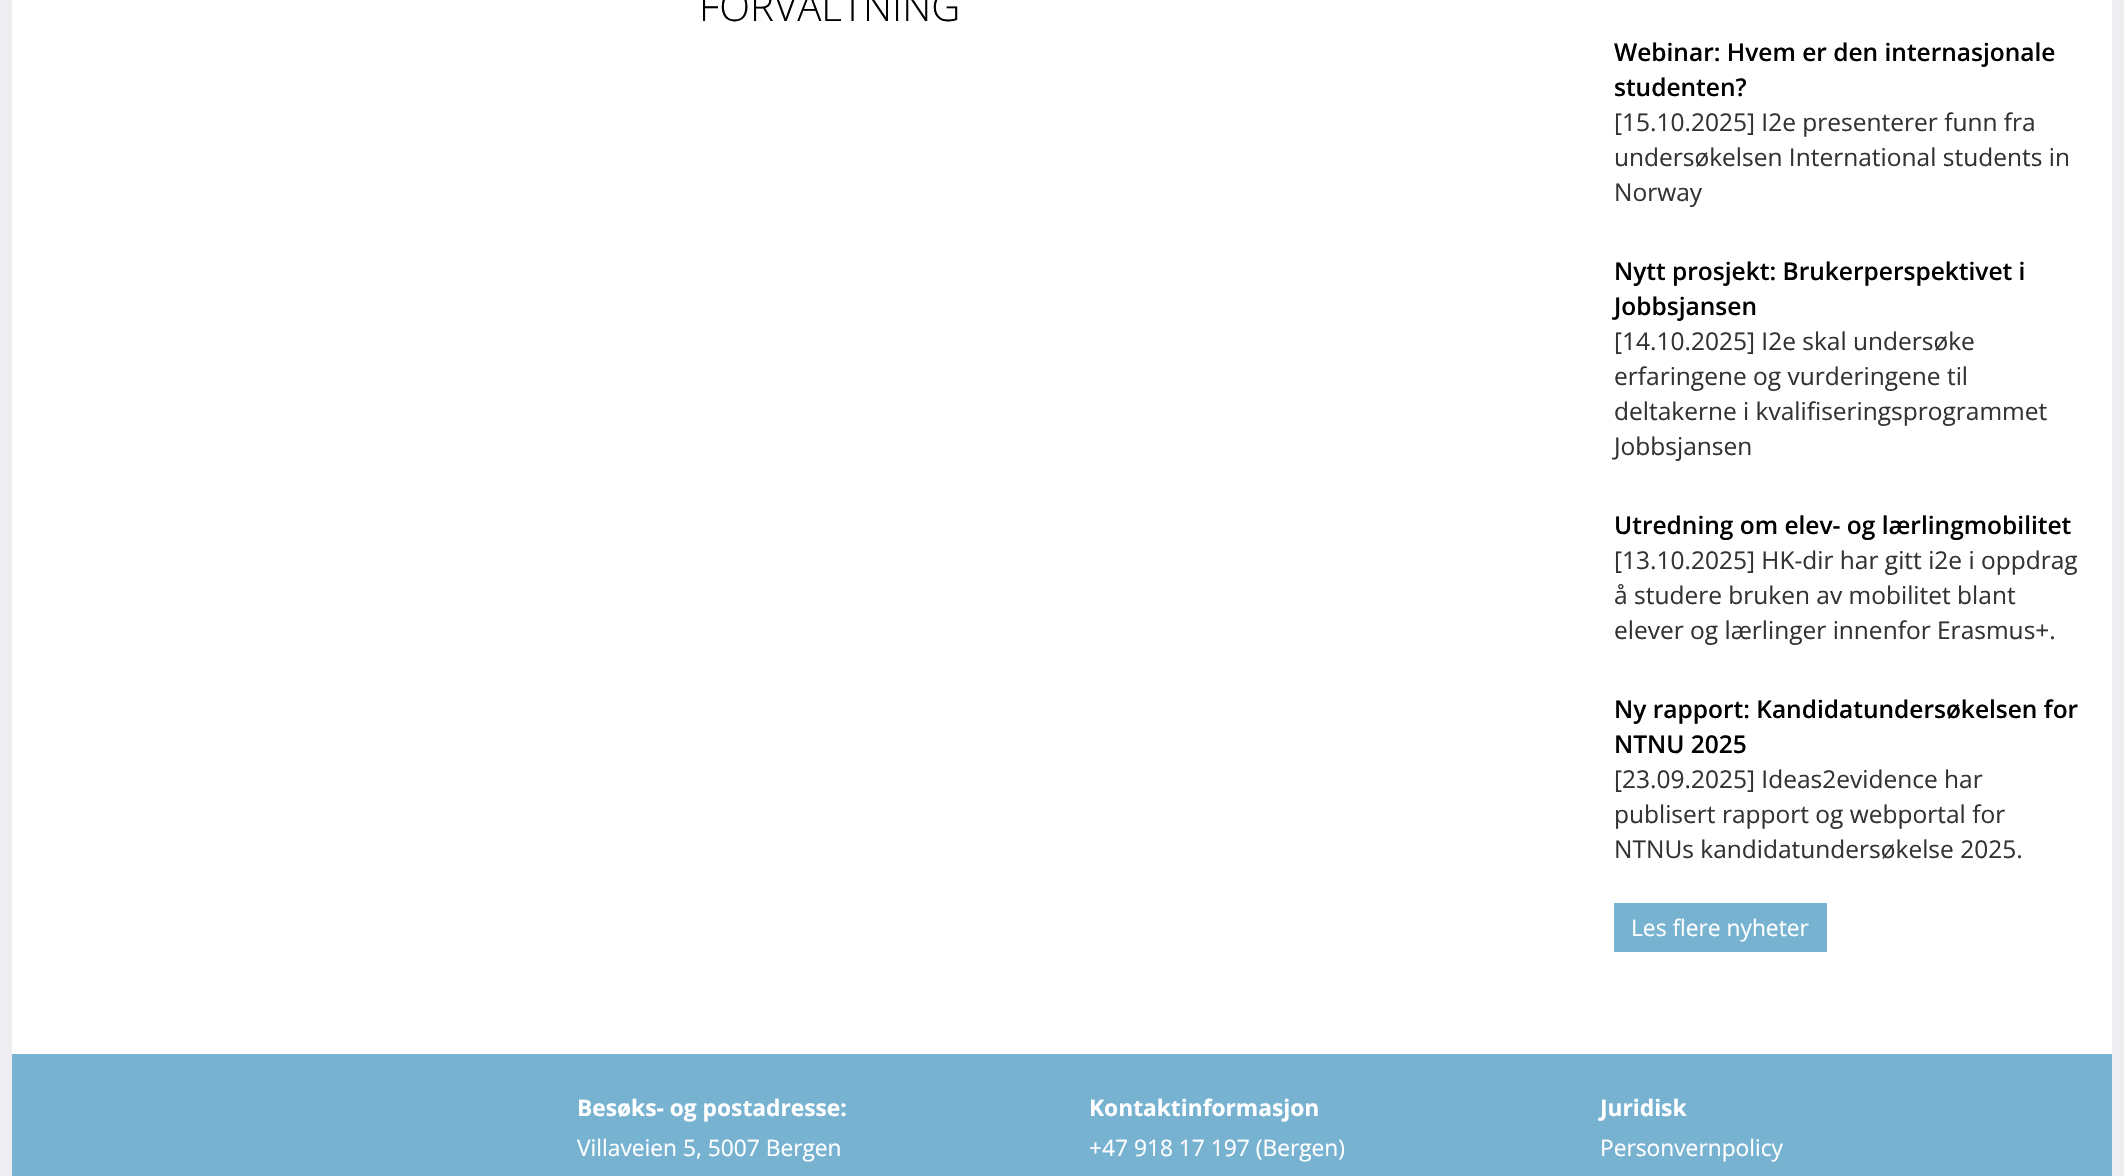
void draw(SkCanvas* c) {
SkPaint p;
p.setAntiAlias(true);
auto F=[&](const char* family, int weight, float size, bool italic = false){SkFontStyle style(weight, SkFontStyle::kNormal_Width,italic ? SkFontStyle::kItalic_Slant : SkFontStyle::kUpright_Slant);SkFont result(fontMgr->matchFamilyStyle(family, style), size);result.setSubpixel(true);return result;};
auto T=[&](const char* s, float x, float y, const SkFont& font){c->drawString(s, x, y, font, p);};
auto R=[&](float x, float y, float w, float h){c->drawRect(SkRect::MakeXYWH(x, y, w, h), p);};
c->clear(0xffeeeef1);
p.setColor(0xffffffff);
R(12,0,2100,1054);
auto f1 = F("Open Sans",300,40.25);
p.setColor(0xff000000);
T("FORVALTNING",699,21,f1);
auto f2 = F("Open Sans",600,24.5);
T("Webinar: Hvem er den internasjonale",1614,61,f2);
T("studenten?",1614,96,f2);
auto f3 = F("Open Sans",400,24.5);
p.setColor(0xff333333);
T("[15.10.2025] I2e presenterer funn fra",1614,131,f3);
T("undersøkelsen International students in",1614,166,f3);
T("Norway",1614,201,f3);
p.setColor(0xff000000);
T("Nytt prosjekt: Brukerperspektivet i",1614,280,f2);
T("Jobbsjansen",1614,315,f2);
p.setColor(0xff333333);
T("[14.10.2025] I2e skal undersøke",1614,350,f3);
T("erfaringene og vurderingene til",1614,385,f3);
T("deltakerne i kvalifiseringsprogrammet",1614,420,f3);
T("Jobbsjansen",1614,455,f3);
p.setColor(0xff000000);
T("Utredning om elev- og lærlingmobilitet",1614,534,f2);
p.setColor(0xff333333);
T("[13.10.2025] HK-dir har gitt i2e i oppdrag",1614,569,f3);
T("å studere bruken av mobilitet blant",1614,604,f3);
T("elever og lærlinger innenfor Erasmus+.",1614,639,f3);
p.setColor(0xff000000);
T("Ny rapport: Kandidatundersøkelsen for",1614,718,f2);
T("NTNU 2025",1614,753,f2);
p.setColor(0xff333333);
T("[23.09.2025] Ideas2evidence har",1614,788,f3);
T("publisert rapport og webportal for",1614,823,f3);
T("NTNUs kandidatundersøkelse 2025.",1614,858,f3);
p.setColor(0xff78b2d1);
R(1614,903,213,49);
auto f4 = F("Open Sans",400,22.75);
p.setColor(0xffffffff);
T("Les flere nyheter",1631,936,f4);
p.setColor(0xff78b2d1);
R(12,1054,2100,122);
auto f5 = F("Open Sans",700,22.75);
p.setColor(0xffffffff);
T("Besøks- og postadresse:",577,1116,f5);
T("Villaveien 5, 5007 Bergen",577,1156,f4);
T("Kontaktinformasjon",1089,1116,f5);
T("+47 918 17 197 (Bergen)",1089,1156,f4);
T("Juridisk",1600,1116,f5);
T("Personvernpolicy",1600,1156,f4);
}
